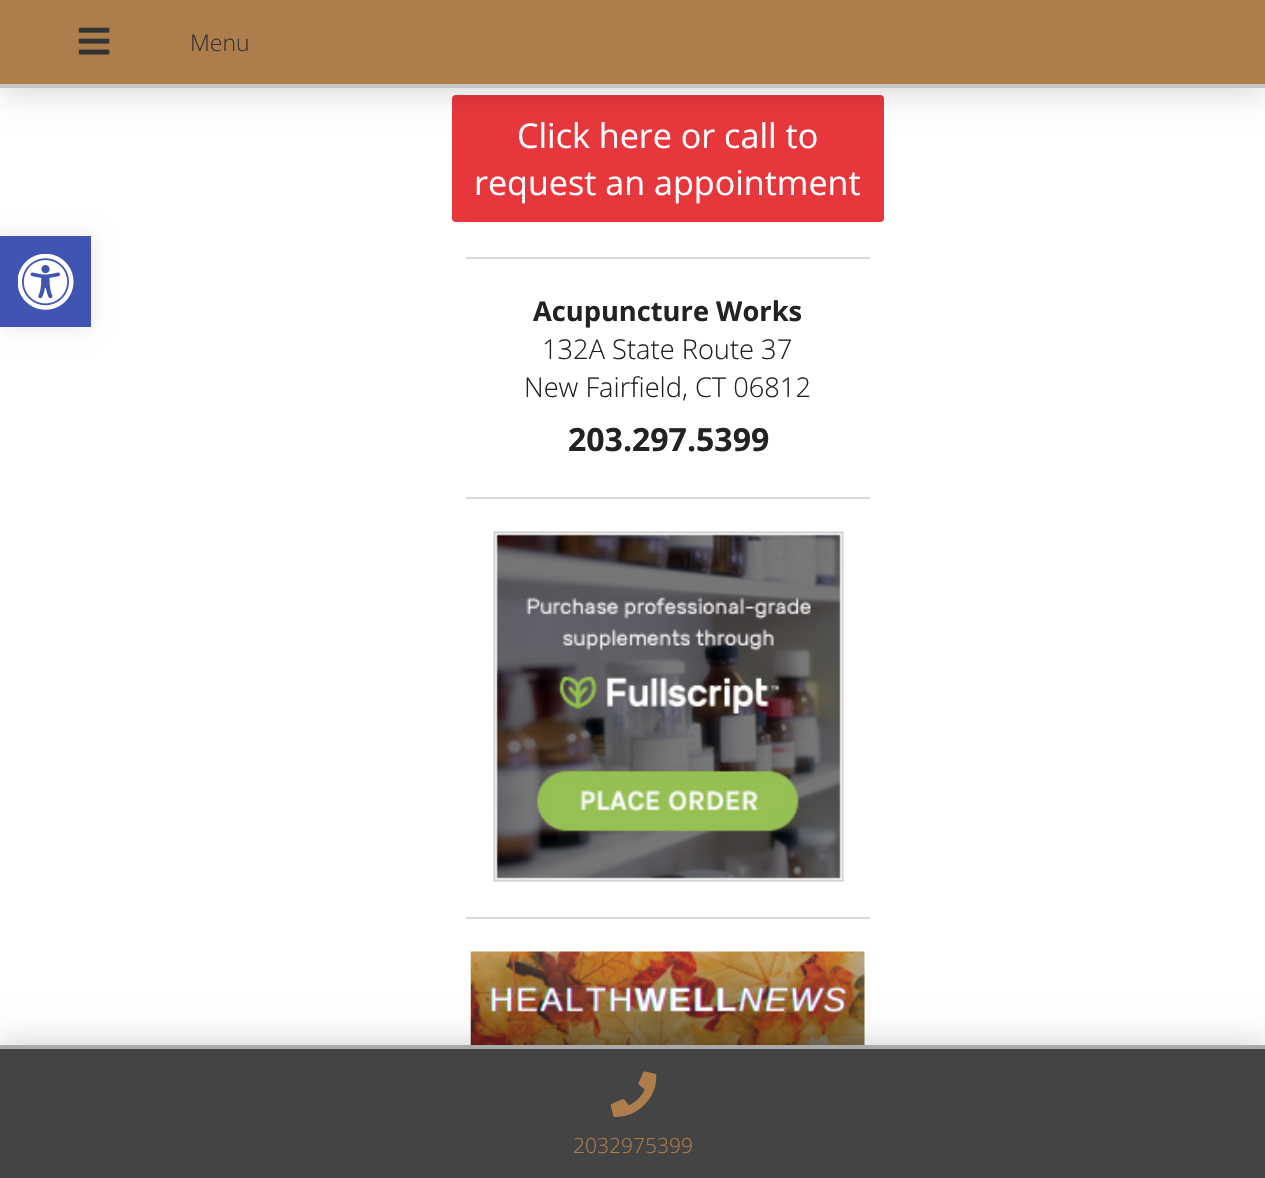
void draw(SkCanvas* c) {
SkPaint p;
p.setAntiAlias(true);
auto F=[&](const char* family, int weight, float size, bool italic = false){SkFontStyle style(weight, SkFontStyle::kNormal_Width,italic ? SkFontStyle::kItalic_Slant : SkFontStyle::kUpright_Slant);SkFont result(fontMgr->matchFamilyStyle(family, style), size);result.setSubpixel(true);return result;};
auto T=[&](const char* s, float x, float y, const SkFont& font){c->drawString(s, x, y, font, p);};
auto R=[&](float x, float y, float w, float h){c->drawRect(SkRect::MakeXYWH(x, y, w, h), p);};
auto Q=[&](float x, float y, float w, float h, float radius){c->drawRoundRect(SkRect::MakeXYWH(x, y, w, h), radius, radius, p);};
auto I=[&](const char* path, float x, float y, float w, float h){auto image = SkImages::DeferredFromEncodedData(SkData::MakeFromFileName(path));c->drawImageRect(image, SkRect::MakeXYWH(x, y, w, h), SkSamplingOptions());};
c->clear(0xffffffff);
p.setColor(0x1a000000);
p.setMaskFilter(SkMaskFilter::MakeBlur(kNormal_SkBlurStyle, 9));
c->drawRect(SkRect::MakeXYWH(0,236,91,91),p);
p.setMaskFilter(nullptr);
p.setColor(0xff4054b2);
R(0,236,91,91);
I("1.png",18,254,56,56);
p.setColor(0xffe7373c);
Q(452,95,432,127,4);
p.setColor(0x26000000);
p.setMaskFilter(SkMaskFilter::MakeBlur(kNormal_SkBlurStyle, 14));
c->drawRect(SkRect::MakeXYWH(0,5,1265,88),p);
p.setMaskFilter(nullptr);
p.setColor(0xffad7d4c);
R(0,0,1265,84);
p.setColor(0xffc6c6c6);
R(0,84,1265,4);
I("2.png",78,27,32,28);
auto f1 = F("Open Sans",300,23);
p.setColor(0xff333333);
T("Menu",190,51,f1);
auto f2 = F("Open Sans",400,34.1);
p.setColor(0xffffffff);
T("Click here or call to",517,148,f2);
T("request an appointment",474,195,f2);
p.setColor(0xffd9d9d9);
R(466,257,404,2);
auto f3 = F("Open Sans",700,27.25);
p.setColor(0xff222222);
T("Acupuncture Works",533,321,f3);
auto f4 = F("Open Sans",300,27.25);
T("132A State Route 37",542,359,f4);
T("New Fairfield, CT 06812",524,397,f4);
auto f5 = F("Open Sans",700,32);
T("203.297.5399",568,451,f5);
p.setColor(0xffd9d9d9);
R(466,497,404,2);
I("3.png",493,531,351,351);
R(466,917,404,2);
I("4.png",470,951,395,94);
p.setColor(0x26000000);
p.setMaskFilter(SkMaskFilter::MakeBlur(kNormal_SkBlurStyle, 14));
c->drawRect(SkRect::MakeXYWH(0,1040,1265,134),p);
p.setMaskFilter(nullptr);
p.setColor(0xff444444);
R(0,1049,1265,129);
p.setColor(0xffaaaaaa);
R(0,1045,1265,4);
I("5.png",610,1071,47,46);
auto f6 = F("Open Sans",300,21);
p.setColor(0xffad7d4c);
T("2032975399",573,1153,f6);
}
